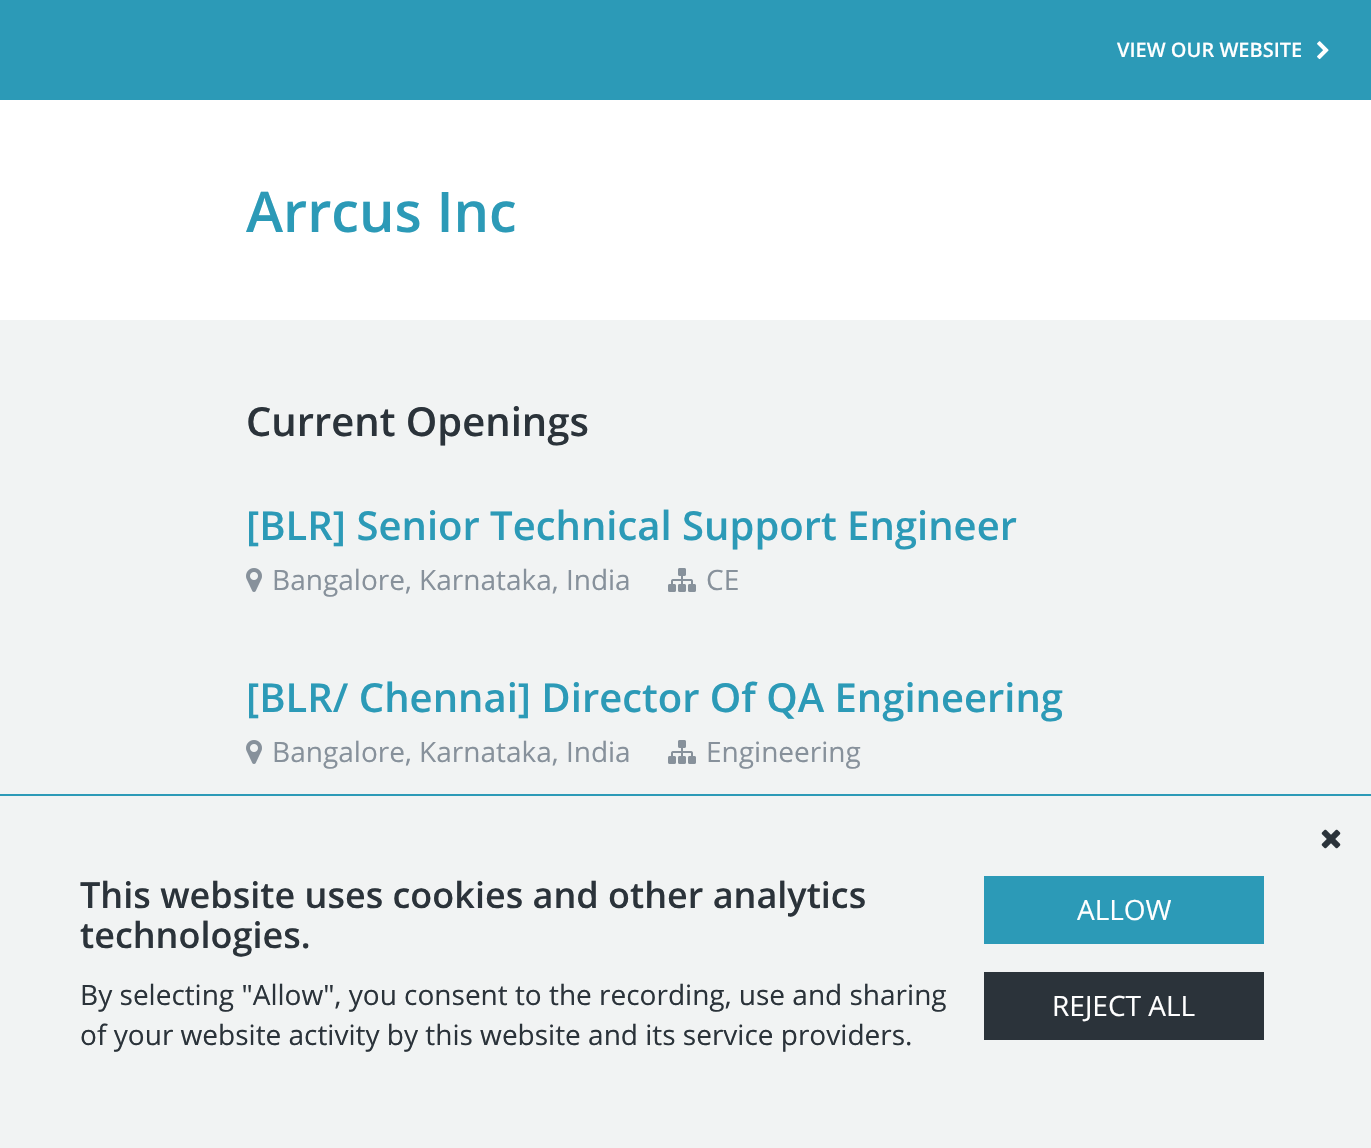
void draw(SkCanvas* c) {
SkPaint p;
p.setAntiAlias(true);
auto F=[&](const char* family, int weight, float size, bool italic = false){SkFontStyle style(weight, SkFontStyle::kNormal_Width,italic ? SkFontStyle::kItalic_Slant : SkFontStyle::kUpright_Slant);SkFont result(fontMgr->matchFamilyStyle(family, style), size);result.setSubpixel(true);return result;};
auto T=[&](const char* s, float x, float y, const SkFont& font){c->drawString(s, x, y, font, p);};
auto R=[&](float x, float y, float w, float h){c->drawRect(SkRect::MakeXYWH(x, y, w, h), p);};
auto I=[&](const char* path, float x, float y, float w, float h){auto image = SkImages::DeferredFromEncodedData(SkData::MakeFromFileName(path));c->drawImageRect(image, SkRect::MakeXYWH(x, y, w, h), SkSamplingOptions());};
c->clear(0xff2c9ab7);
auto f1 = F("Open Sans",600,20);
p.setColor(0xffffffff);
T("VIEW OUR WEBSITE",1117,57,f1);
I("1.png",1317,41,12,19);
R(0,100,1371,220);
auto f2 = F("Open Sans",600,56);
p.setColor(0xff2c9ab7);
T("Arrcus Inc",246,232,f2);
p.setColor(0xfff1f3f3);
R(0,320,1371,474);
auto f3 = F("Open Sans",600,40);
p.setColor(0xff2b333a);
T("Current Openings",246,436,f3);
p.setColor(0xff2c9ab7);
T("[BLR] Senior Technical Support Engineer",246,540,f3);
I("2.png",246,568,16,24);
auto f4 = F("Open Sans",400,28);
p.setColor(0xff87919b);
T("Bangalore, Karnataka, India",272,590,f4);
I("3.png",668,568,28,24);
T("CE",706,590,f4);
p.setColor(0xff2c9ab7);
T("[BLR/ Chennai] Director Of QA Engineering",246,712,f3);
I("2.png",246,740,16,24);
p.setColor(0xff87919b);
T("Bangalore, Karnataka, India",272,762,f4);
I("3.png",668,740,28,24);
T("Engineering",706,762,f4);
p.setColor(0xfff1f3f3);
R(0,796,1371,352);
I("4.png",1321,829,20,20);
auto f5 = F("Open Sans",600,36);
p.setColor(0xff2b333a);
T("This website uses cookies and other analytics",80,908,f5);
T("technologies.",80,948,f5);
T("By selecting \"Allow\", you consent to the recording, use and sharing",80,1005,f4);
T("of your website activity by this website and its service providers.",80,1045,f4);
p.setColor(0xff2c9ab7);
R(984,876,280,68);
p.setColor(0xffffffff);
T("ALLOW",1077,920,f4);
p.setColor(0xff2b333a);
R(984,972,280,68);
p.setColor(0xffffffff);
T("REJECT ALL",1052,1016,f4);
}
